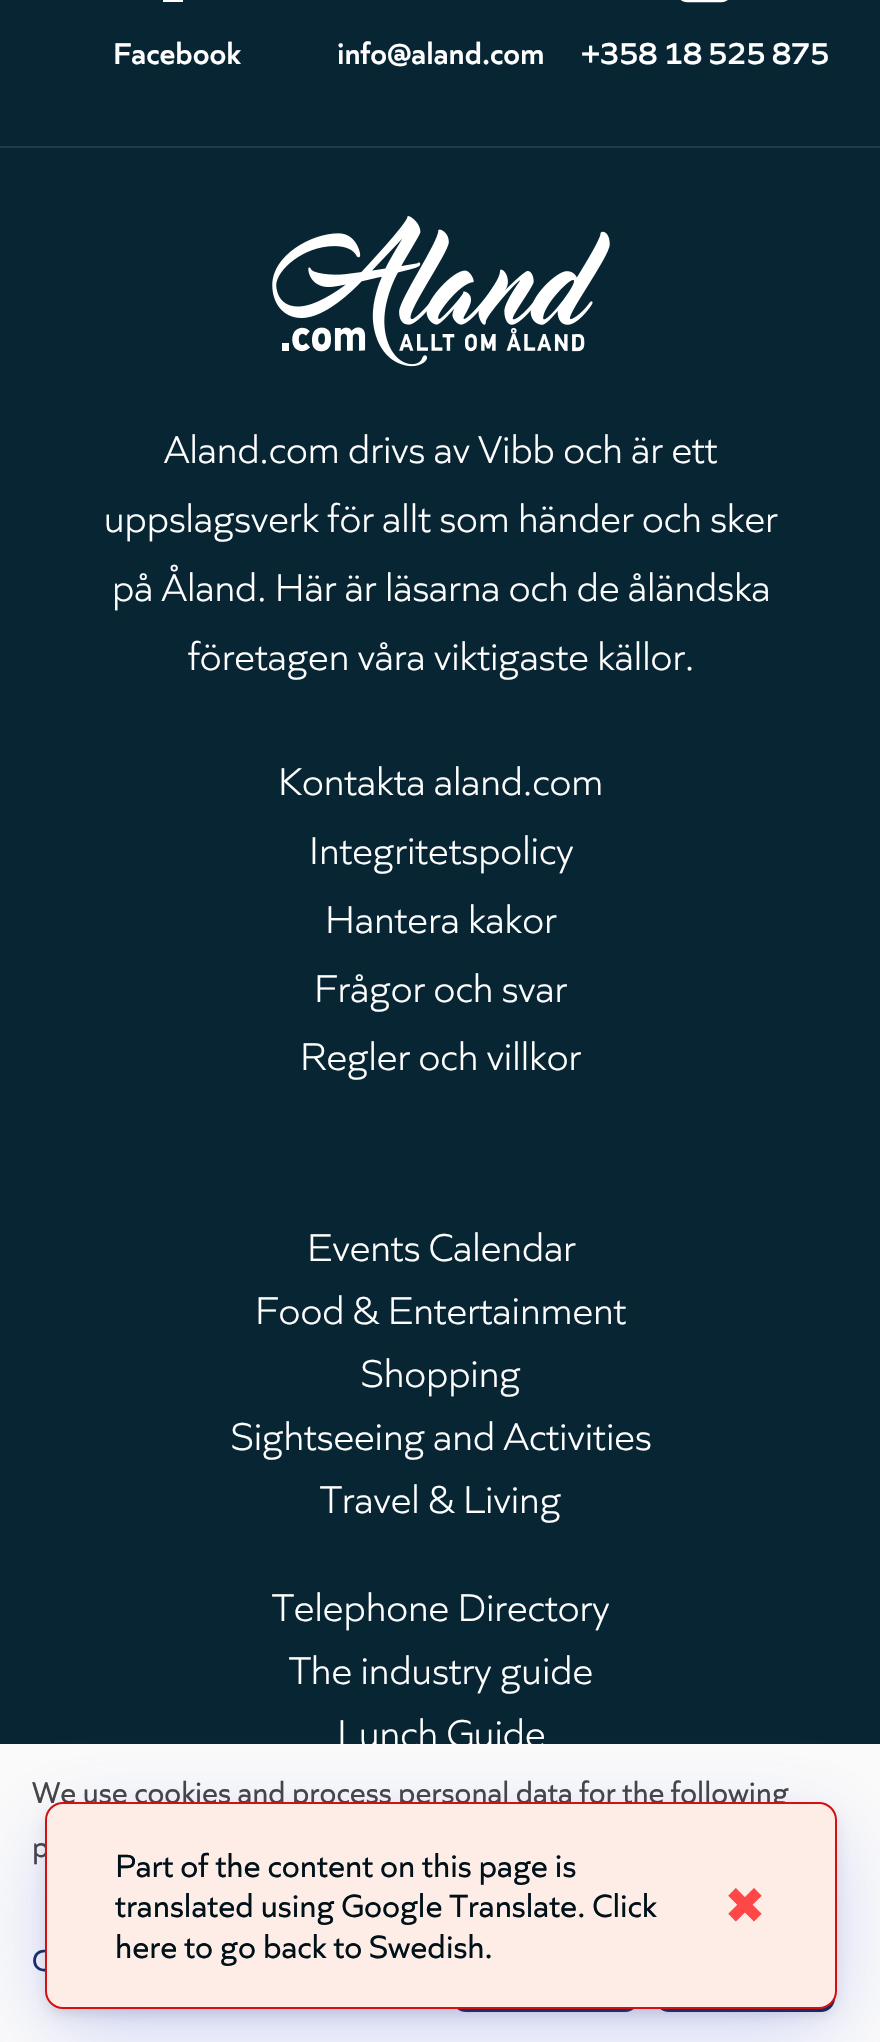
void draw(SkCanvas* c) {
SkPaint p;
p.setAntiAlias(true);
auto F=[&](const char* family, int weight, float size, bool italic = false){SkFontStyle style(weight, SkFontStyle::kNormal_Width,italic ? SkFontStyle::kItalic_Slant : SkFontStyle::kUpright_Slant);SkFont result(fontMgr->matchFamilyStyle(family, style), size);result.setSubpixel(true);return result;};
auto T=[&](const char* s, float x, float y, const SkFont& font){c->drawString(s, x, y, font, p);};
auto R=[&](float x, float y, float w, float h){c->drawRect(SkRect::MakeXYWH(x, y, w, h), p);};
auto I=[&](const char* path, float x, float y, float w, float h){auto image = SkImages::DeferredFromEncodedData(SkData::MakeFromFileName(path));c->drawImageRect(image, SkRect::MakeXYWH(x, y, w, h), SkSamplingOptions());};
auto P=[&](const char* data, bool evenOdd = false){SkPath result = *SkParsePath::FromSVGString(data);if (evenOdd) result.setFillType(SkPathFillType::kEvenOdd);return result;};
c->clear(0xff082533);
p.setColor(0xff1f3c4b);
R(0,146,880,2);
p.setColor(0xffffffff);
c->drawPath(P("M163-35v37h20v-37h15l3-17h-18c0-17 2-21 19-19v-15c-14-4-33-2-38 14c-2 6-1 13-1 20h-12v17z"),p);
auto f1 = F("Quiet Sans",600,31.5);
T("Facebook",113,64,f1);
T("info@aland.com",337,64,f1);
I("1.png",680,0,48,3);
T("+358 18 525 875",581,64,f1);
I("2.png",272,216,338,151);
auto f2 = F("Quiet Sans",300,40.5);
T("Aland.com drivs av Vibb och är ett",164,463,f2);
T("uppslagsverk för allt som händer och sker",104,532,f2);
T("på Åland. Här är läsarna och de åländska",112,601,f2);
T("företagen våra viktigaste källor.",188,670,f2);
T("Kontakta aland.com",278,795,f2);
T("Integritetspolicy",309,864,f2);
T("Hantera kakor",325,933,f2);
T("Frågor och svar",314,1002,f2);
T("Regler och villkor",300,1070,f2);
T("Events Calendar",307,1261,f2);
T("Food & Entertainment",255,1324,f2);
T("Shopping",361,1387,f2);
T("Sightseeing and Activities",231,1450,f2);
T("Travel & Living",320,1513,f2);
T("Telephone Directory",272,1621,f2);
T("The industry guide",289,1684,f2);
T("Lunch Guide",337,1747,f2);
p.setColor(0xfffafafa);
R(0,1744,880,298);
auto f3 = F("Quiet Sans",400,31.5);
p.setColor(0xff444444);
T("We use cookies and process personal data for the following",32,1803,f3);
T("p",32,1857,f3);
p.setColor(0xff12285f);
T("C",32,1971,f3);
p.setStroke(true);
p.setStrokeWidth(7);
c->drawRoundRect(SkRect::MakeXYWH(455.5,1907.5,180,101),10.5,10.5,p);
c->drawRoundRect(SkRect::MakeXYWH(658.5,1907.5,173,101),10.5,10.5,p);
p.setStroke(false);
p.setColor(0x4d4d60e8);
p.setMaskFilter(SkMaskFilter::MakeBlur(kNormal_SkBlurStyle, 40.5));
c->drawRoundRect(SkRect::MakeXYWH(54,1834,774,189),9,9,p);
p.setMaskFilter(nullptr);
p.setColor(0x1f000000);
p.setMaskFilter(SkMaskFilter::MakeBlur(kNormal_SkBlurStyle, 7));
c->drawRoundRect(SkRect::MakeXYWH(47,1811,788,203),16,16,p);
p.setMaskFilter(nullptr);
p.setColor(0xfffdede6);
c->drawRoundRect(SkRect::MakeXYWH(46,1803,790,205),17,17,p);
p.setStroke(true);
p.setStrokeWidth(2);
p.setColor(0xffd51010);
c->drawRoundRect(SkRect::MakeXYWH(46,1803,790,205),17,17,p);
auto f4 = F("Quiet Sans",400,33.75);
p.setStroke(false);
p.setColor(0xff001119);
T("Part of the content on this page is",115,1877,f4);
T("translated using Google Translate. Click",115,1917,f4);
auto f5 = F("DejaVu Sans",400,50);
p.setColor(0xffff4747);
T("✖",724,1923,f5);
p.setColor(0xff001119);
T("here to go back to Swedish.",115,1958,f4);
}
